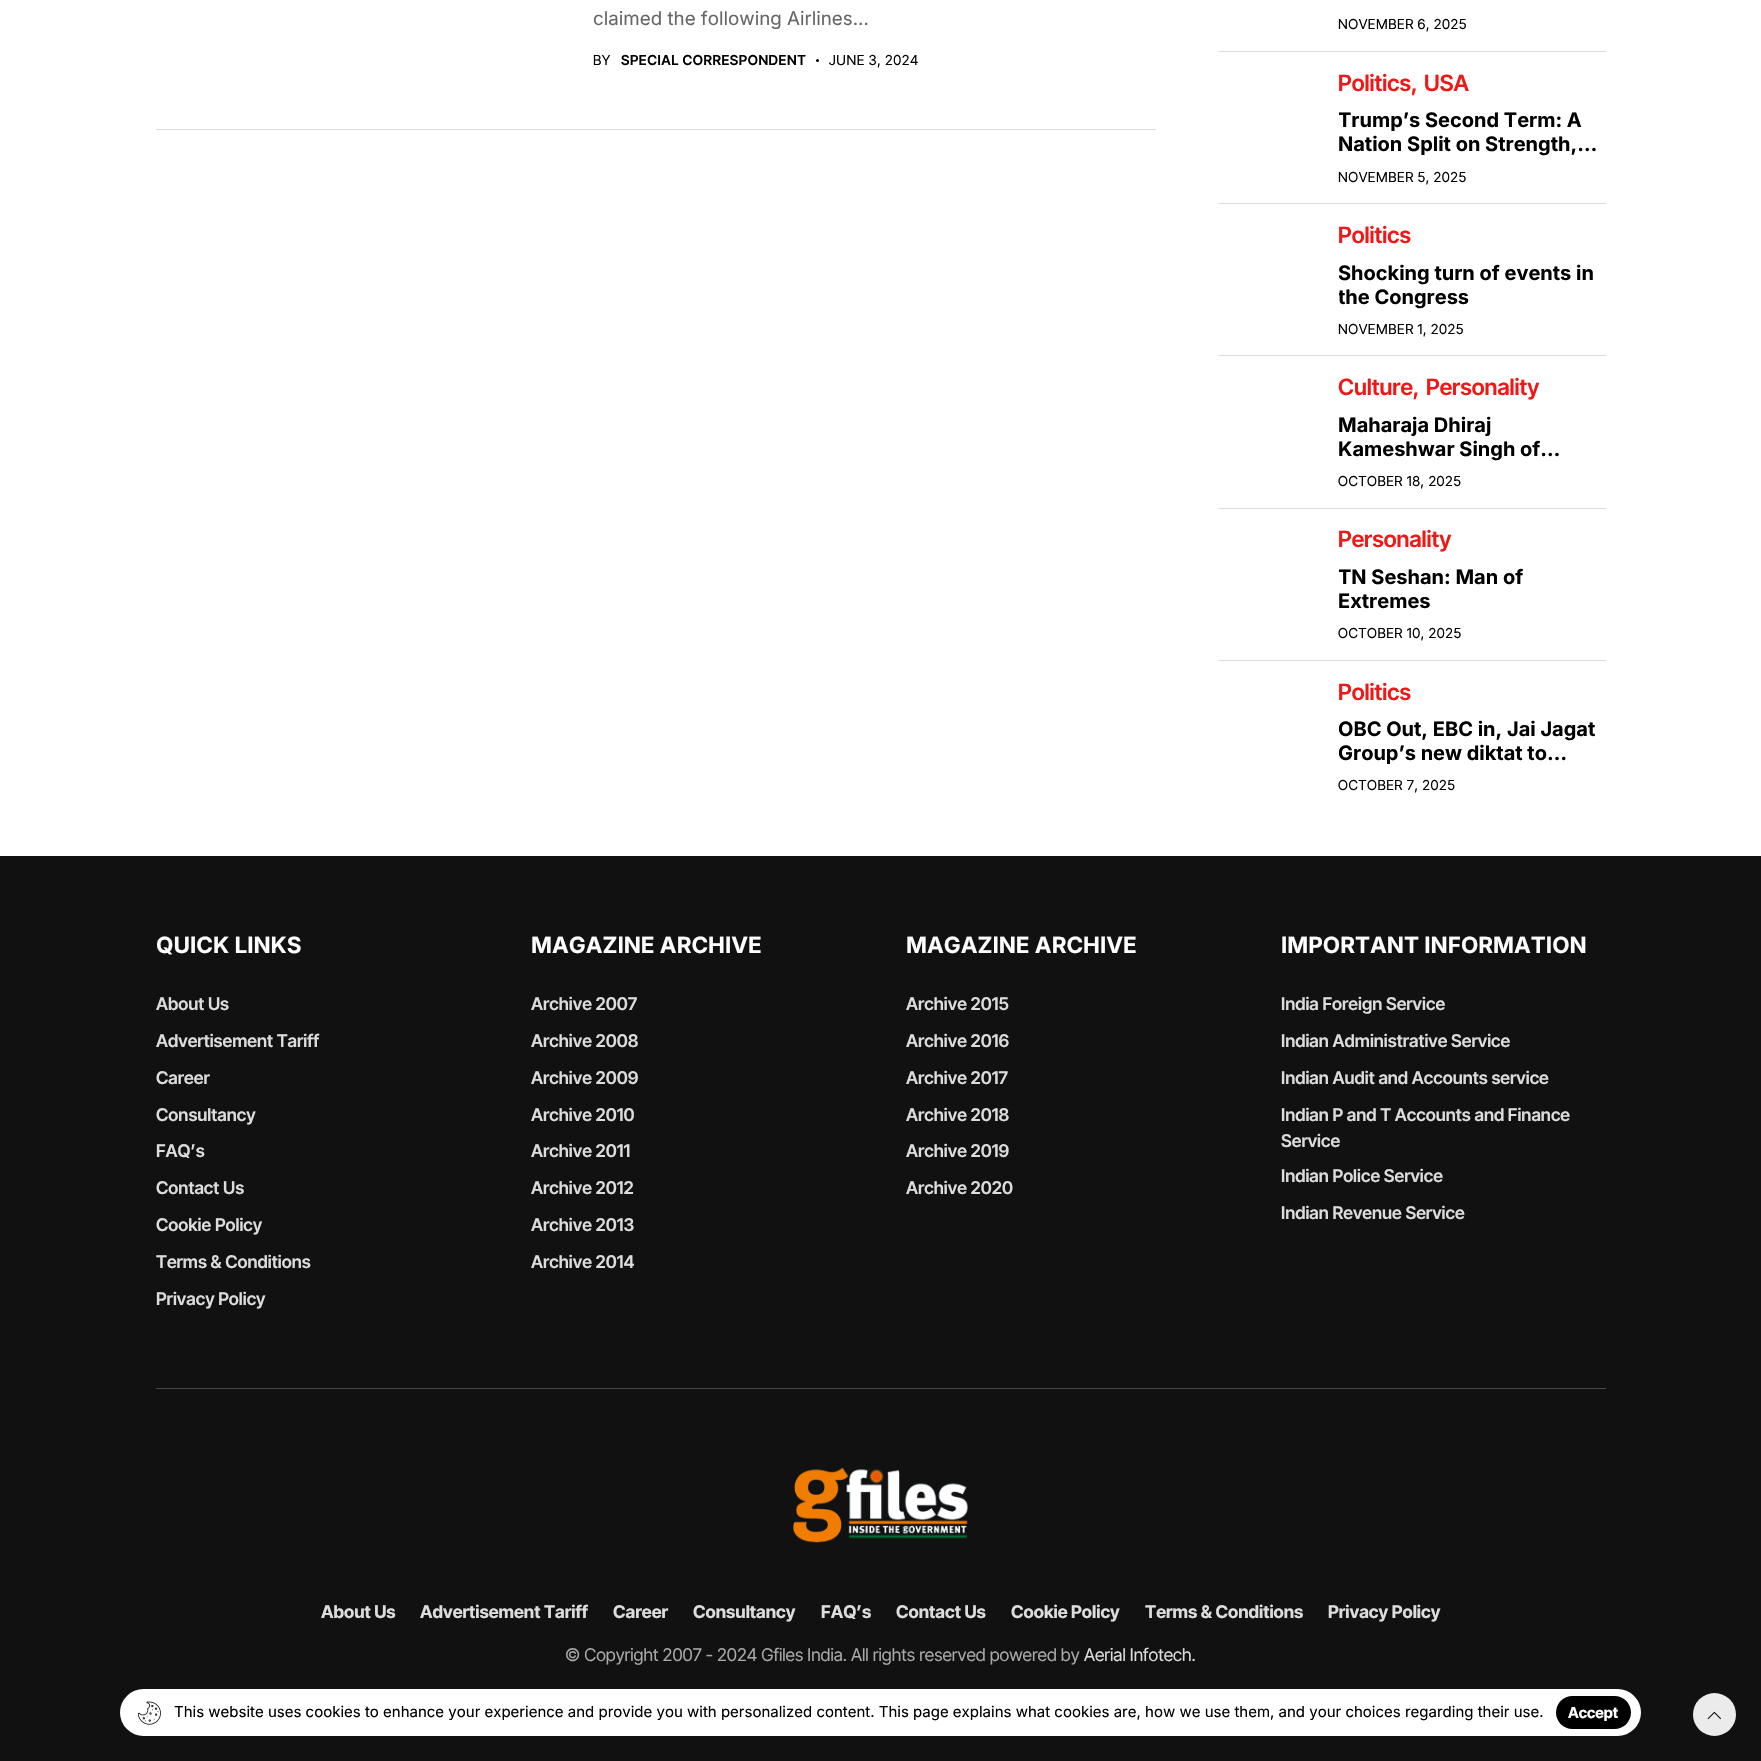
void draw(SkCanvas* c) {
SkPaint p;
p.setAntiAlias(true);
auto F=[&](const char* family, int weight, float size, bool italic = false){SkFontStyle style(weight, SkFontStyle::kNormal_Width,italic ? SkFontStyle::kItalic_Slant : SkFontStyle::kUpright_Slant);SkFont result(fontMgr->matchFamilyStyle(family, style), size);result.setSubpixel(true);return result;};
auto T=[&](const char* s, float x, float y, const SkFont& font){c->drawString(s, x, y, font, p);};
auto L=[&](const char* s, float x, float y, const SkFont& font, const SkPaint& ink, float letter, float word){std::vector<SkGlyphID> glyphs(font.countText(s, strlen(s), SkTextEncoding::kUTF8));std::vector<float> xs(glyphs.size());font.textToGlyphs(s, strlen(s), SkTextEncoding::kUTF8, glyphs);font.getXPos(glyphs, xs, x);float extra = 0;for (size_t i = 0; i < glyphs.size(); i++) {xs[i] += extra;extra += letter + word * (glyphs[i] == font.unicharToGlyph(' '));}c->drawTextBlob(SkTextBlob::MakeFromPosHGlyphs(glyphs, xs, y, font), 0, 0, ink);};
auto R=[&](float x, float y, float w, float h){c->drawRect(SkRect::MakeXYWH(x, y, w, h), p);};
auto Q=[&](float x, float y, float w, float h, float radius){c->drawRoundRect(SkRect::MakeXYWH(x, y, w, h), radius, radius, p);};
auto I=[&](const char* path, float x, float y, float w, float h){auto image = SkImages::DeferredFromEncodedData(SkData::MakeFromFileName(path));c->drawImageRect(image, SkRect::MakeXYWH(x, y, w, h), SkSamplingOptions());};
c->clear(0xffffffff);
auto f1 = F("Inter",400,18.75);
p.setColor(0xff666666);
T("claimed the following Airlines...",593,25,f1);
auto f2 = F("Inter Tight",400,13.75);
p.setColor(0xff000000);
L("BY",593,65,f2,p,.55,0);
auto f3 = F("Inter Tight",600,13.75);
L("SPECIAL CORRESPONDENT",621,65,f3,p,.55,0);
c->drawCircle(817.5,60.5,1.5,p);
L("JUNE 3, 2024",829,65,f2,p,.55,0);
p.setColor(0xffdbdbdb);
R(156,129,1000,1);
p.setColor(0xff000000);
L("NOVEMBER 6, 2025",1338,29,f2,p,.55,0);
p.setColor(0xffdbdbdb);
R(1219,51,387,1);
auto f4 = F("Inter Tight",600,22.5);
p.setColor(0xfff21717);
T("Politics,",1338,91,f4);
T("USA",1424,91,f4);
c->save();
c->clipRect(SkRect::MakeXYWH(1339,109,267,47));
auto f5 = F("Inter",700,20);
p.setColor(0xff000000);
T("Trump’s Second Term: A",1338,127,f5);
c->restore();
T("Nation Split on Strength,…",1338,151,f5);
L("NOVEMBER 5, 2025",1338,182,f2,p,.55,0);
p.setColor(0xffdbdbdb);
R(1219,203,387,1);
p.setColor(0xfff21717);
T("Politics",1338,243,f4);
p.setColor(0xff000000);
T("Shocking turn of events in",1338,280,f5);
c->save();
c->clipRect(SkRect::MakeXYWH(1339,261,267,48));
T("the Congress",1338,304,f5);
c->restore();
L("NOVEMBER 1, 2025",1338,334,f2,p,.55,0);
p.setColor(0xffdbdbdb);
R(1219,355,387,1);
p.setColor(0xfff21717);
T("Culture,",1338,395,f4);
T("Personality",1426,395,f4);
p.setColor(0xff000000);
T("Maharaja Dhiraj",1338,432,f5);
T("Kameshwar Singh of…",1338,456,f5);
L("OCTOBER 18, 2025",1338,486,f2,p,.55,0);
p.setColor(0xffdbdbdb);
R(1219,508,387,1);
p.setColor(0xfff21717);
T("Personality",1338,547,f4);
c->save();
c->clipRect(SkRect::MakeXYWH(1339,565,267,48));
p.setColor(0xff000000);
T("TN Seshan: Man of",1338,584,f5);
c->restore();
T("Extremes",1338,608,f5);
L("OCTOBER 10, 2025",1338,638,f2,p,.55,0);
p.setColor(0xffdbdbdb);
R(1219,660,387,1);
p.setColor(0xfff21717);
T("Politics",1338,700,f4);
p.setColor(0xff000000);
T("OBC Out, EBC in, Jai Jagat",1338,736,f5);
T("Group’s new diktat to…",1338,760,f5);
L("OCTOBER 7, 2025",1338,790,f2,p,.55,0);
p.setColor(0xff111111);
R(0,856,1761,905);
auto f6 = F("Inter",700,22.5);
p.setColor(0xffffffff);
T("QUICK LINKS",156,953,f6);
auto f7 = F("Inter Tight",600,17.5);
p.setColor(0xffdcdcdc);
T("About Us",156,1010,f7);
T("Advertisement Tariff",156,1047,f7);
T("Career",156,1084,f7);
T("Consultancy",156,1121,f7);
T("FAQ’s",156,1157,f7);
T("Contact Us",156,1194,f7);
T("Cookie Policy",156,1231,f7);
T("Terms & Conditions",156,1268,f7);
T("Privacy Policy",156,1305,f7);
p.setColor(0xffffffff);
T("MAGAZINE ARCHIVE",531,953,f6);
p.setColor(0xffdcdcdc);
T("Archive 2007",531,1010,f7);
T("Archive 2008",531,1047,f7);
T("Archive 2009",531,1084,f7);
T("Archive 2010",531,1121,f7);
T("Archive 2011",531,1157,f7);
T("Archive 2012",531,1194,f7);
T("Archive 2013",531,1231,f7);
T("Archive 2014",531,1268,f7);
p.setColor(0xffffffff);
T("MAGAZINE ARCHIVE",906,953,f6);
p.setColor(0xffdcdcdc);
T("Archive 2015",906,1010,f7);
T("Archive 2016",906,1047,f7);
T("Archive 2017",906,1084,f7);
T("Archive 2018",906,1121,f7);
T("Archive 2019",906,1157,f7);
T("Archive 2020",906,1194,f7);
p.setColor(0xffffffff);
T("IMPORTANT INFORMATION",1281,953,f6);
p.setColor(0xffdcdcdc);
T("India Foreign Service",1281,1010,f7);
T("Indian Administrative Service",1281,1047,f7);
T("Indian Audit and Accounts service",1281,1084,f7);
T("Indian P and T Accounts and Finance",1281,1121,f7);
T("Service",1281,1147,f7);
T("Indian Police Service",1281,1182,f7);
T("Indian Revenue Service",1281,1219,f7);
p.setColor(0xff49494b);
R(156,1388,1450,1);
I("1.png",793,1467,175,76);
auto f8 = F("Inter Tight",700,17.5);
p.setColor(0xffdcdcdc);
T("About Us",321,1618,f8);
T("Advertisement Tariff",420,1618,f8);
T("Career",613,1618,f8);
T("Consultancy",693,1618,f8);
T("FAQ’s",821,1618,f8);
T("Contact Us",896,1618,f8);
T("Cookie Policy",1011,1618,f8);
T("Terms & Conditions",1145,1618,f8);
T("Privacy Policy",1328,1618,f8);
auto f9 = F("Inter Tight",400,17.5);
p.setColor(0xffa8a8aa);
T("© Copyright 2007 - 2024 Gfiles India. All rights reserved powered by",565,1661,f9);
p.setColor(0xffdcdcdc);
T("Aerial Infotech.",1084,1661,f9);
p.setColor(0xffebebeb);
c->drawCircle(1714.5,1714.5,21.5,p);
I("2.png",1707,1711,14,9);
p.setColor(0xffffffff);
Q(120,1689,1521,47,23.5);
I("3.png",138,1701,23,24);
auto f10 = F("Inter",400,15);
p.setColor(0xff000000);
T("This website uses cookies to enhance your experience and provide you with personalized content. This page explains what cookies are, how we use them, and your choices regarding their use.",174,1717,f10);
Q(1556,1696,75,33,16.5);
auto f11 = F("Inter Tight",700,15);
p.setColor(0xffffffff);
T("Accept",1568,1718,f11);
}
